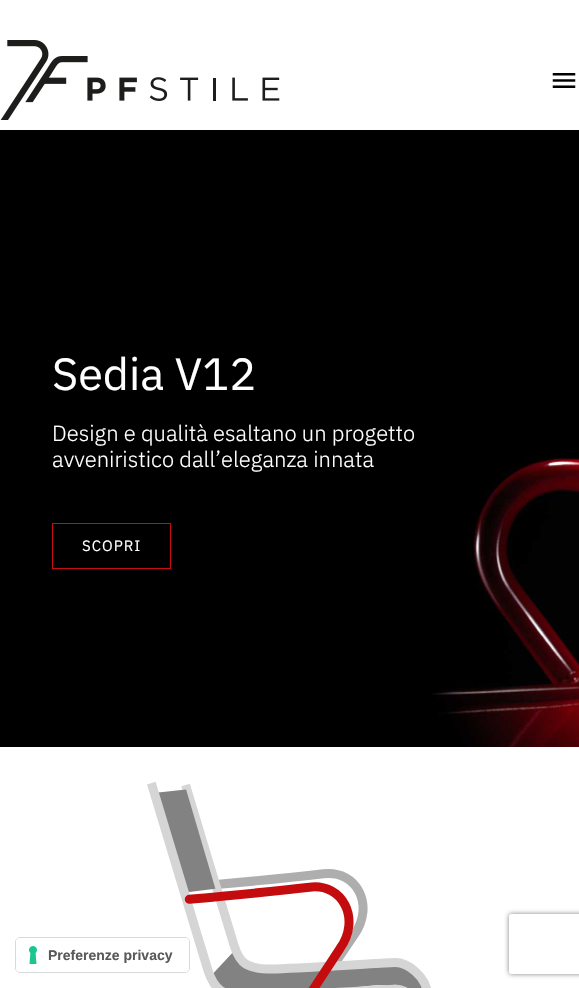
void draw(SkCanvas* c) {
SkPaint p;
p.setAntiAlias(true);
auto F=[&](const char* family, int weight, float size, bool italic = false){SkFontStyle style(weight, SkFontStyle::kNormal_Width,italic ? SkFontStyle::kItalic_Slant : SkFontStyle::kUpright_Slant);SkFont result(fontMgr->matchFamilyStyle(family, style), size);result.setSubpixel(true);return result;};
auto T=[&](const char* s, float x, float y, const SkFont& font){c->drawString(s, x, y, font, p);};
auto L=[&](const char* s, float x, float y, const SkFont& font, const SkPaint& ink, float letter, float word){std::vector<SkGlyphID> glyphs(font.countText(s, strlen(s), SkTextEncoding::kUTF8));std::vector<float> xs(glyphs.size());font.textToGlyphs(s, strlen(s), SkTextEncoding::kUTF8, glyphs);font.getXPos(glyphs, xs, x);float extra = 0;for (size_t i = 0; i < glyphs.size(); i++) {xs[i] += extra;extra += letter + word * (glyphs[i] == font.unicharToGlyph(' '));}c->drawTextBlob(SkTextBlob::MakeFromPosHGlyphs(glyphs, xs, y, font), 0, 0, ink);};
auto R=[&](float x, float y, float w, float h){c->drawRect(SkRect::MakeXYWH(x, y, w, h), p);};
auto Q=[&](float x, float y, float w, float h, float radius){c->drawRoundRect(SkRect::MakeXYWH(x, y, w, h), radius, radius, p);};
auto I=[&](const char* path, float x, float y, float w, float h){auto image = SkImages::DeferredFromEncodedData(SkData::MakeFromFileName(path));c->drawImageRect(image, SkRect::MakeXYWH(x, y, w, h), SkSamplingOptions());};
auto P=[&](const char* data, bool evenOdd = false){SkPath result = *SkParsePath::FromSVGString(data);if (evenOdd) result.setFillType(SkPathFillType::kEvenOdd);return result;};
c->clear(0xffffffff);
I("1.png",0,40,280,80);
I("2.png",552,73,24,15);
p.setColor(0xff000000);
R(0,130,579,617);
I("3.png",432,457,147,290);
auto f1 = F("Anuphan",400,45);
p.setColor(0xffffffff);
T("Sedia V12",52,390,f1);
auto f2 = F("Anuphan",300,22);
T("Design e qualità esaltano un progetto",52,441,f2);
T("avveniristico dall’eleganza innata",52,467,f2);
p.setStroke(true);
p.setStrokeWidth(1);
p.setColor(0xffc90c0f);
c->drawRect(SkRect::MakeXYWH(52.5,523.5,118,45),p);
auto f3 = F("Anuphan",400,15);
p.setStroke(false);
p.setColor(0xffffffff);
L("SCOPRI",82,551,f3,p,1,0);
I("4.png",147,782,284,206);
p.setStroke(true);
p.setColor(0xffd9d9d9);
c->drawRoundRect(SkRect::MakeXYWH(15.5,937.5,174,35),4.5,4.5,p);
p.setStroke(false);
p.setColor(0xffffffff);
Q(16,938,173,34,4);
I("5.png",29,946,8,18);
auto f4 = F("Liberation Sans",700,14);
p.setColor(0xff595959);
T("Preferenze privacy",48,960,f4);
c->save();
c->clipPath(P("M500 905h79v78h-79zm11 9h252c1 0 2 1 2 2v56c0 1-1 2-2 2h-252c-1 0-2-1-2-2v-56c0-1 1-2 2-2z",true),true);
p.setColor(0xff808080);
p.setMaskFilter(SkMaskFilter::MakeBlur(kNormal_SkBlurStyle, 2.5));
c->drawRoundRect(SkRect::MakeXYWH(509,914,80,60),2,2,p);
p.setMaskFilter(nullptr);
c->restore();
}
